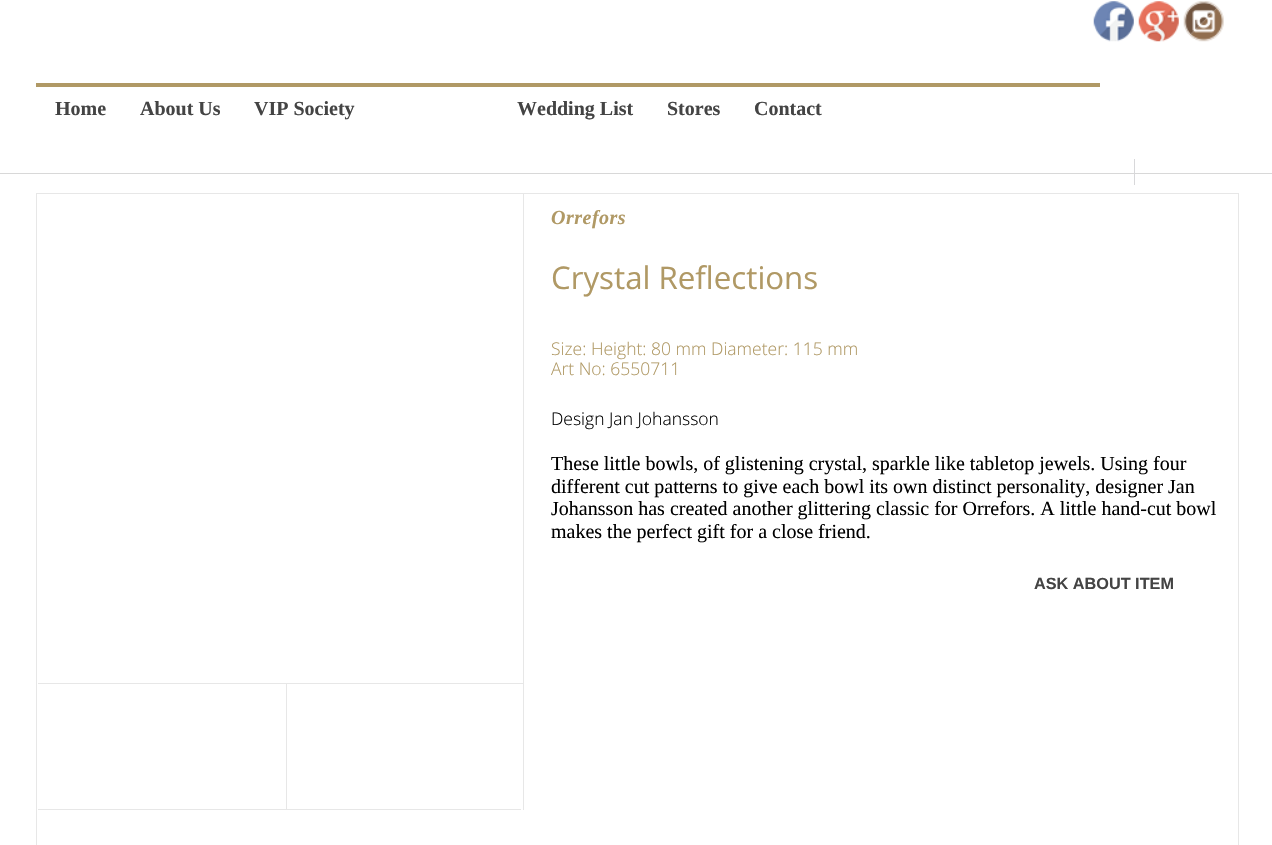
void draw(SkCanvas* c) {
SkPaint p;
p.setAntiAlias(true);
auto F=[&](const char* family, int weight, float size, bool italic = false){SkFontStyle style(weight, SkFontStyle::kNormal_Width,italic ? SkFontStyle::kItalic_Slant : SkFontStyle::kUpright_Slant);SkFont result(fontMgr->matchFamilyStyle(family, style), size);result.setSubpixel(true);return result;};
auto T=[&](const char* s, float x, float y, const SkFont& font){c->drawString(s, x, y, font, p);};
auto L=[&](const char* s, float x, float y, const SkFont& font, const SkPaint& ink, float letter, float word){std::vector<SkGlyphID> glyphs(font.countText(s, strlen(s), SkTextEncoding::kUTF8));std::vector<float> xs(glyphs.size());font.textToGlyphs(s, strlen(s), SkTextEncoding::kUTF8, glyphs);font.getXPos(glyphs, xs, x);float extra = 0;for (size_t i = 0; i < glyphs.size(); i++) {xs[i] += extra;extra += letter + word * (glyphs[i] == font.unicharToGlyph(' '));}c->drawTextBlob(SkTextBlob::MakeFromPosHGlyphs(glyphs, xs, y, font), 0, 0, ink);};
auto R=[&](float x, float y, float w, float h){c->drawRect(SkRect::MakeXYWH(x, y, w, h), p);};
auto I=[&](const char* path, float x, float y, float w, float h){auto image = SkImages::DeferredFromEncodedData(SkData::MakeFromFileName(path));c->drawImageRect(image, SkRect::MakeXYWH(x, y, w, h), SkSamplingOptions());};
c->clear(0xffffffff);
p.setColor(0xffd8d8d8);
R(0,173,1272,1);
I("1.png",1093,1,41,41);
I("2.png",1138,1,41,41);
I("3.png",1183,1,41,41);
p.setColor(0xffb09965);
R(36,83,1064,4);
auto f1 = F("Liberation Serif",700,20);
p.setColor(0xff444444);
T("Home",55,115,f1);
T("About Us",140,115,f1);
T("VIP Society",254,115,f1);
T("Wedding List",517,115,f1);
T("Stores",667,115,f1);
T("Contact",754,115,f1);
p.setColor(0xffd8d8da);
R(1134,159,1,26);
p.setStroke(true);
p.setStrokeWidth(1);
p.setColor(0xffe7e7e7);
c->drawRect(SkRect::MakeXYWH(36.5,193.5,1202,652),p);
p.setStroke(false);
R(523,194,1,616);
R(38,809,483,1);
R(38,683,485,1);
R(286,684,1,125);
auto f2 = F("Liberation Serif",700,20,true);
p.setColor(0xffb09965);
L("Orrefors",551,224,f2,p,.5,0);
auto f3 = F("Open Sans",400,31.25);
T("Crystal Reflections",551,289,f3);
auto f4 = F("Open Sans",300,17.5);
T("Size: Height: 80 mm Diameter: 115 mm",551,355,f4);
T("Art No: 6550711",551,375,f4);
p.setColor(0xff000000);
T("Design Jan Johansson",551,425,f4);
auto f5 = F("Liberation Serif",400,20);
T("These little bowls, of glistening crystal, sparkle like tabletop jewels. Using four",551,470,f5);
T("different cut patterns to give each bowl its own distinct personality, designer Jan",551,493,f5);
T("Johansson has created another glittering classic for Orrefors. A little hand-cut bowl",551,515,f5);
T("makes the perfect gift for a close friend.",551,538,f5);
auto f6 = F("Liberation Sans",700,16.25);
p.setColor(0xff444444);
T("ASK ABOUT ITEM",1034,589,f6);
}
